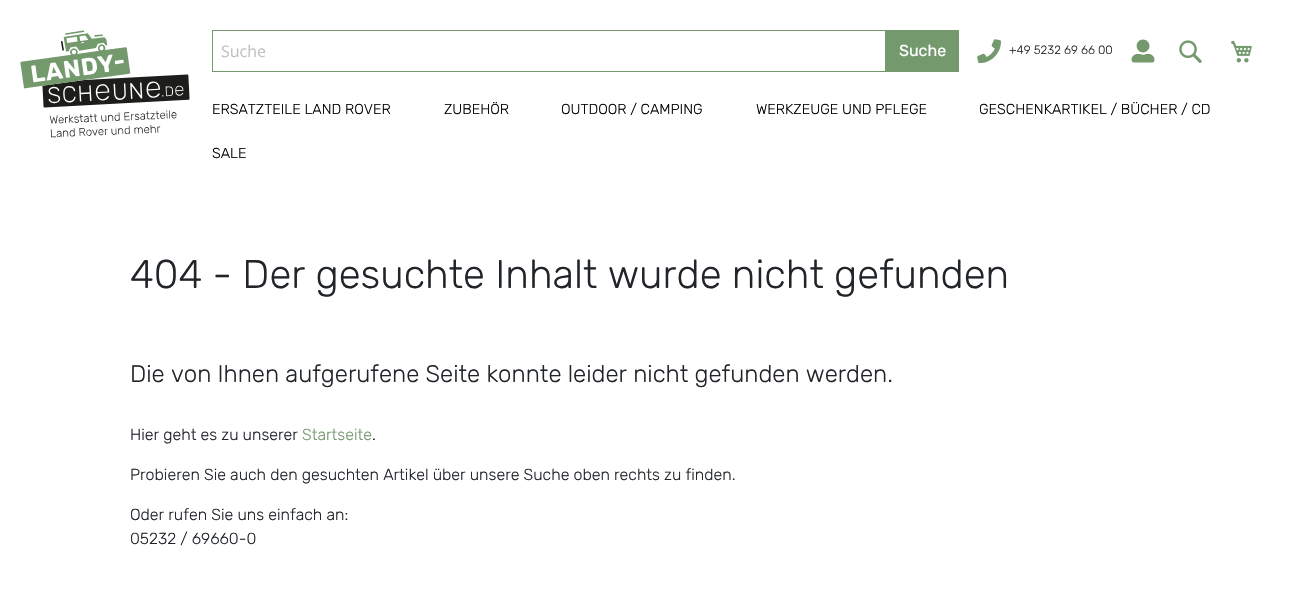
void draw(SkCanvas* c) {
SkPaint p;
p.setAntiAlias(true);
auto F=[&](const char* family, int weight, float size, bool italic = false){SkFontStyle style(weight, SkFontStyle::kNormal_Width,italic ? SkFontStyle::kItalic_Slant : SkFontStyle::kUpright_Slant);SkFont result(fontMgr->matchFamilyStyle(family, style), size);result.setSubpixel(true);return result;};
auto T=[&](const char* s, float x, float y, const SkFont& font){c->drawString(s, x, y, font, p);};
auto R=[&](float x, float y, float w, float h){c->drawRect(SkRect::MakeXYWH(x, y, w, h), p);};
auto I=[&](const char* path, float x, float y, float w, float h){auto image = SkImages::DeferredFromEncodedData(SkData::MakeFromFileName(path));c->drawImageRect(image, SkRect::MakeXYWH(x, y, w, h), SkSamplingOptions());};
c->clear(0xffffffff);
I("1.png",20,30,170,108);
p.setStroke(true);
p.setStrokeWidth(1);
p.setColor(0xff73996d);
c->drawRect(SkRect::MakeXYWH(212.5,30.5,673,41),p);
auto f1 = F("Open Sans",400,16);
p.setStroke(false);
p.setColor(0xffc2c2c2);
T("Suche",221,57,f1);
p.setColor(0xff73996d);
R(886,30,73,42);
auto f2 = F("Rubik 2",300,16);
p.setColor(0xffffffff);
T("Suche",899,56,f2);
I("2.png",977,39,24,24);
auto f3 = F("Rubik",300,12);
p.setColor(0xff212529);
T("+49 5232 69 66 00",1009,54,f3);
I("3.png",1131,39,24,24);
I("4.png",1179,40,23,23);
I("5.png",1231,40,21,23);
auto f4 = F("Rubik",300,14.4);
p.setColor(0xff000000);
T("ERSATZTEILE LAND ROVER",212,114,f4);
T("ZUBEHÖR",444,114,f4);
T("OUTDOOR / CAMPING",561,114,f4);
T("WERKZEUGE UND PFLEGE",756,114,f4);
T("GESCHENKARTIKEL / BÜCHER / CD",979,114,f4);
T("SALE",212,158,f4);
auto f5 = F("Rubik",300,40);
p.setColor(0xff212529);
T("404 - Der gesuchte Inhalt wurde nicht gefunden",130,288,f5);
auto f6 = F("Rubik",300,24);
T("Die von Ihnen aufgerufene Seite konnte leider nicht gefunden werden.",130,382,f6);
auto f7 = F("Rubik",300,16);
T("Hier geht es zu unserer",130,440,f7);
p.setColor(0xff73996d);
T("Startseite",302,440,f7);
p.setColor(0xff212529);
T(".",372,440,f7);
T("Probieren Sie auch den gesuchten Artikel über unsere Suche oben rechts zu finden.",130,480,f7);
T("Oder rufen Sie uns einfach an:",130,520,f7);
T("05232 / 69660-0",130,544,f7);
}
